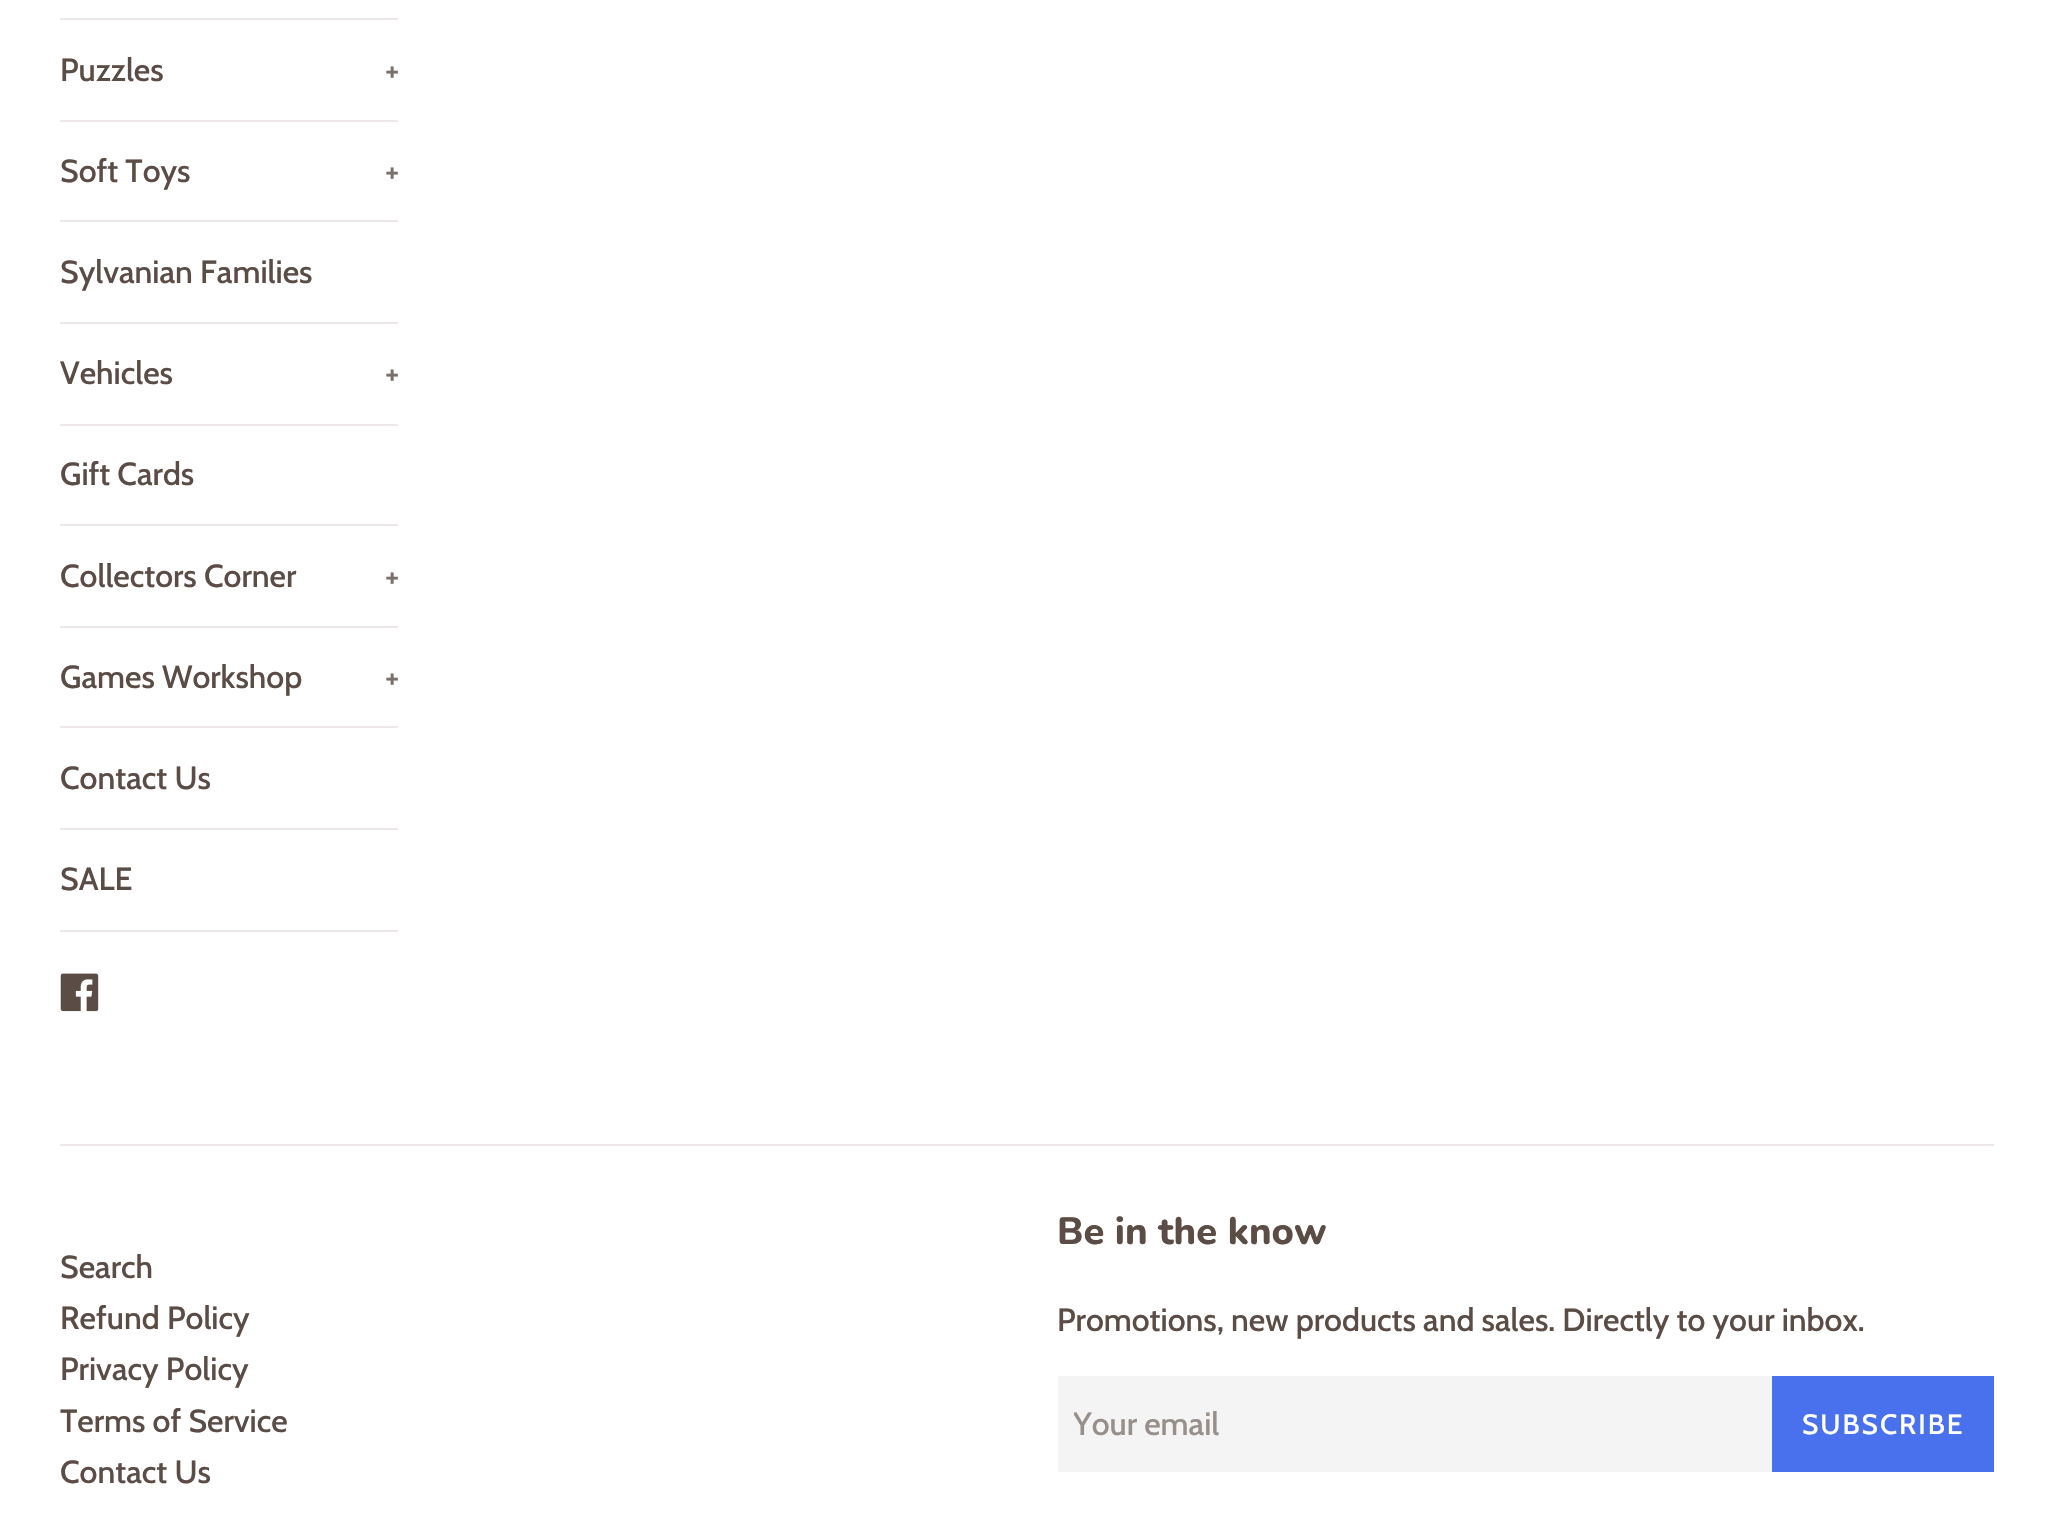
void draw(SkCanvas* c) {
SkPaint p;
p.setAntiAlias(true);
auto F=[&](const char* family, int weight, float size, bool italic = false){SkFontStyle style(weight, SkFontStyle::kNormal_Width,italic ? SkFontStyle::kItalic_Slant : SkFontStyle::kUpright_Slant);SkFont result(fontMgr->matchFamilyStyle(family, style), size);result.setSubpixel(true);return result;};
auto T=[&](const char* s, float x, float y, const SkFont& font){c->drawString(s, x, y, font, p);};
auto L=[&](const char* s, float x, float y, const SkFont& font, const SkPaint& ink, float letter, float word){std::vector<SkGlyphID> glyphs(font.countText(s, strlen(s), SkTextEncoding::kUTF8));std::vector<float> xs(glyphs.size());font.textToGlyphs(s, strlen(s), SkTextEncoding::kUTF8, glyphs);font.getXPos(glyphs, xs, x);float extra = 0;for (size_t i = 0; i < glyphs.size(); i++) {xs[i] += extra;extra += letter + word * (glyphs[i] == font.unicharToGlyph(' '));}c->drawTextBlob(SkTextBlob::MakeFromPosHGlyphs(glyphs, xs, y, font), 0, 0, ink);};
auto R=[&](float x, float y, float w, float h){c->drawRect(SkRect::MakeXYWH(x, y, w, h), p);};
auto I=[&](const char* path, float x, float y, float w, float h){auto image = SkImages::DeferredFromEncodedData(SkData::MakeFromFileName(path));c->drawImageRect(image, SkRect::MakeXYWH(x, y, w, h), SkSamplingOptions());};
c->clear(0xffffffff);
p.setColor(0xffede8e7);
R(60,18,338,2);
R(60,120,338,2);
auto f1 = F("Cabin",500,32);
p.setColor(0xff5b4c45);
T("Puzzles",60,81,f1);
p.setColor(0xff7c706a);
T("+",385,81,f1);
p.setColor(0xffede8e7);
R(60,220,338,2);
p.setColor(0xff5b4c45);
T("Soft Toys",60,182,f1);
p.setColor(0xff7c706a);
T("+",385,182,f1);
p.setColor(0xffede8e7);
R(60,322,338,2);
p.setColor(0xff5b4c45);
T("Sylvanian Families",60,283,f1);
p.setColor(0xffede8e7);
R(60,424,338,2);
p.setColor(0xff5b4c45);
T("Vehicles",60,384,f1);
p.setColor(0xff7c706a);
T("+",385,384,f1);
p.setColor(0xffede8e7);
R(60,524,338,2);
p.setColor(0xff5b4c45);
T("Gift Cards",60,485,f1);
p.setColor(0xffede8e7);
R(60,626,338,2);
p.setColor(0xff5b4c45);
T("Collectors Corner",60,587,f1);
p.setColor(0xff7c706a);
T("+",385,587,f1);
p.setColor(0xffede8e7);
R(60,726,338,2);
p.setColor(0xff5b4c45);
T("Games Workshop",60,688,f1);
p.setColor(0xff7c706a);
T("+",385,688,f1);
p.setColor(0xffede8e7);
R(60,828,338,2);
p.setColor(0xff5b4c45);
T("Contact Us",60,789,f1);
p.setColor(0xffede8e7);
R(60,930,338,2);
p.setColor(0xff5b4c45);
T("SALE",60,890,f1);
I("1.png",60,973,39,39);
p.setColor(0xffede8e7);
R(60,1144,1934,2);
p.setColor(0xff5b4c45);
T("Search",60,1278,f1);
T("Refund Policy",60,1329,f1);
T("Privacy Policy",60,1380,f1);
T("Terms of Service",60,1432,f1);
T("Contact Us",60,1483,f1);
auto f2 = F("Nunito",800,38);
T("Be in the know",1057,1244,f2);
T("Promotions, new products and sales. Directly to your inbox.",1057,1331,f1);
p.setColor(0xfff4f4f4);
R(1058,1376,714,96);
c->save();
c->clipRect(SkRect::MakeXYWH(1074,1406,682,38));
p.setColor(0xff988f8b);
T("Your email",1073,1435,f1);
c->restore();
p.setColor(0xff4970ed);
R(1772,1376,222,96);
auto f3 = F("Cabin",500,28);
p.setColor(0xffffffff);
L("SUBSCRIBE",1802,1434,f3,p,2,0);
}
